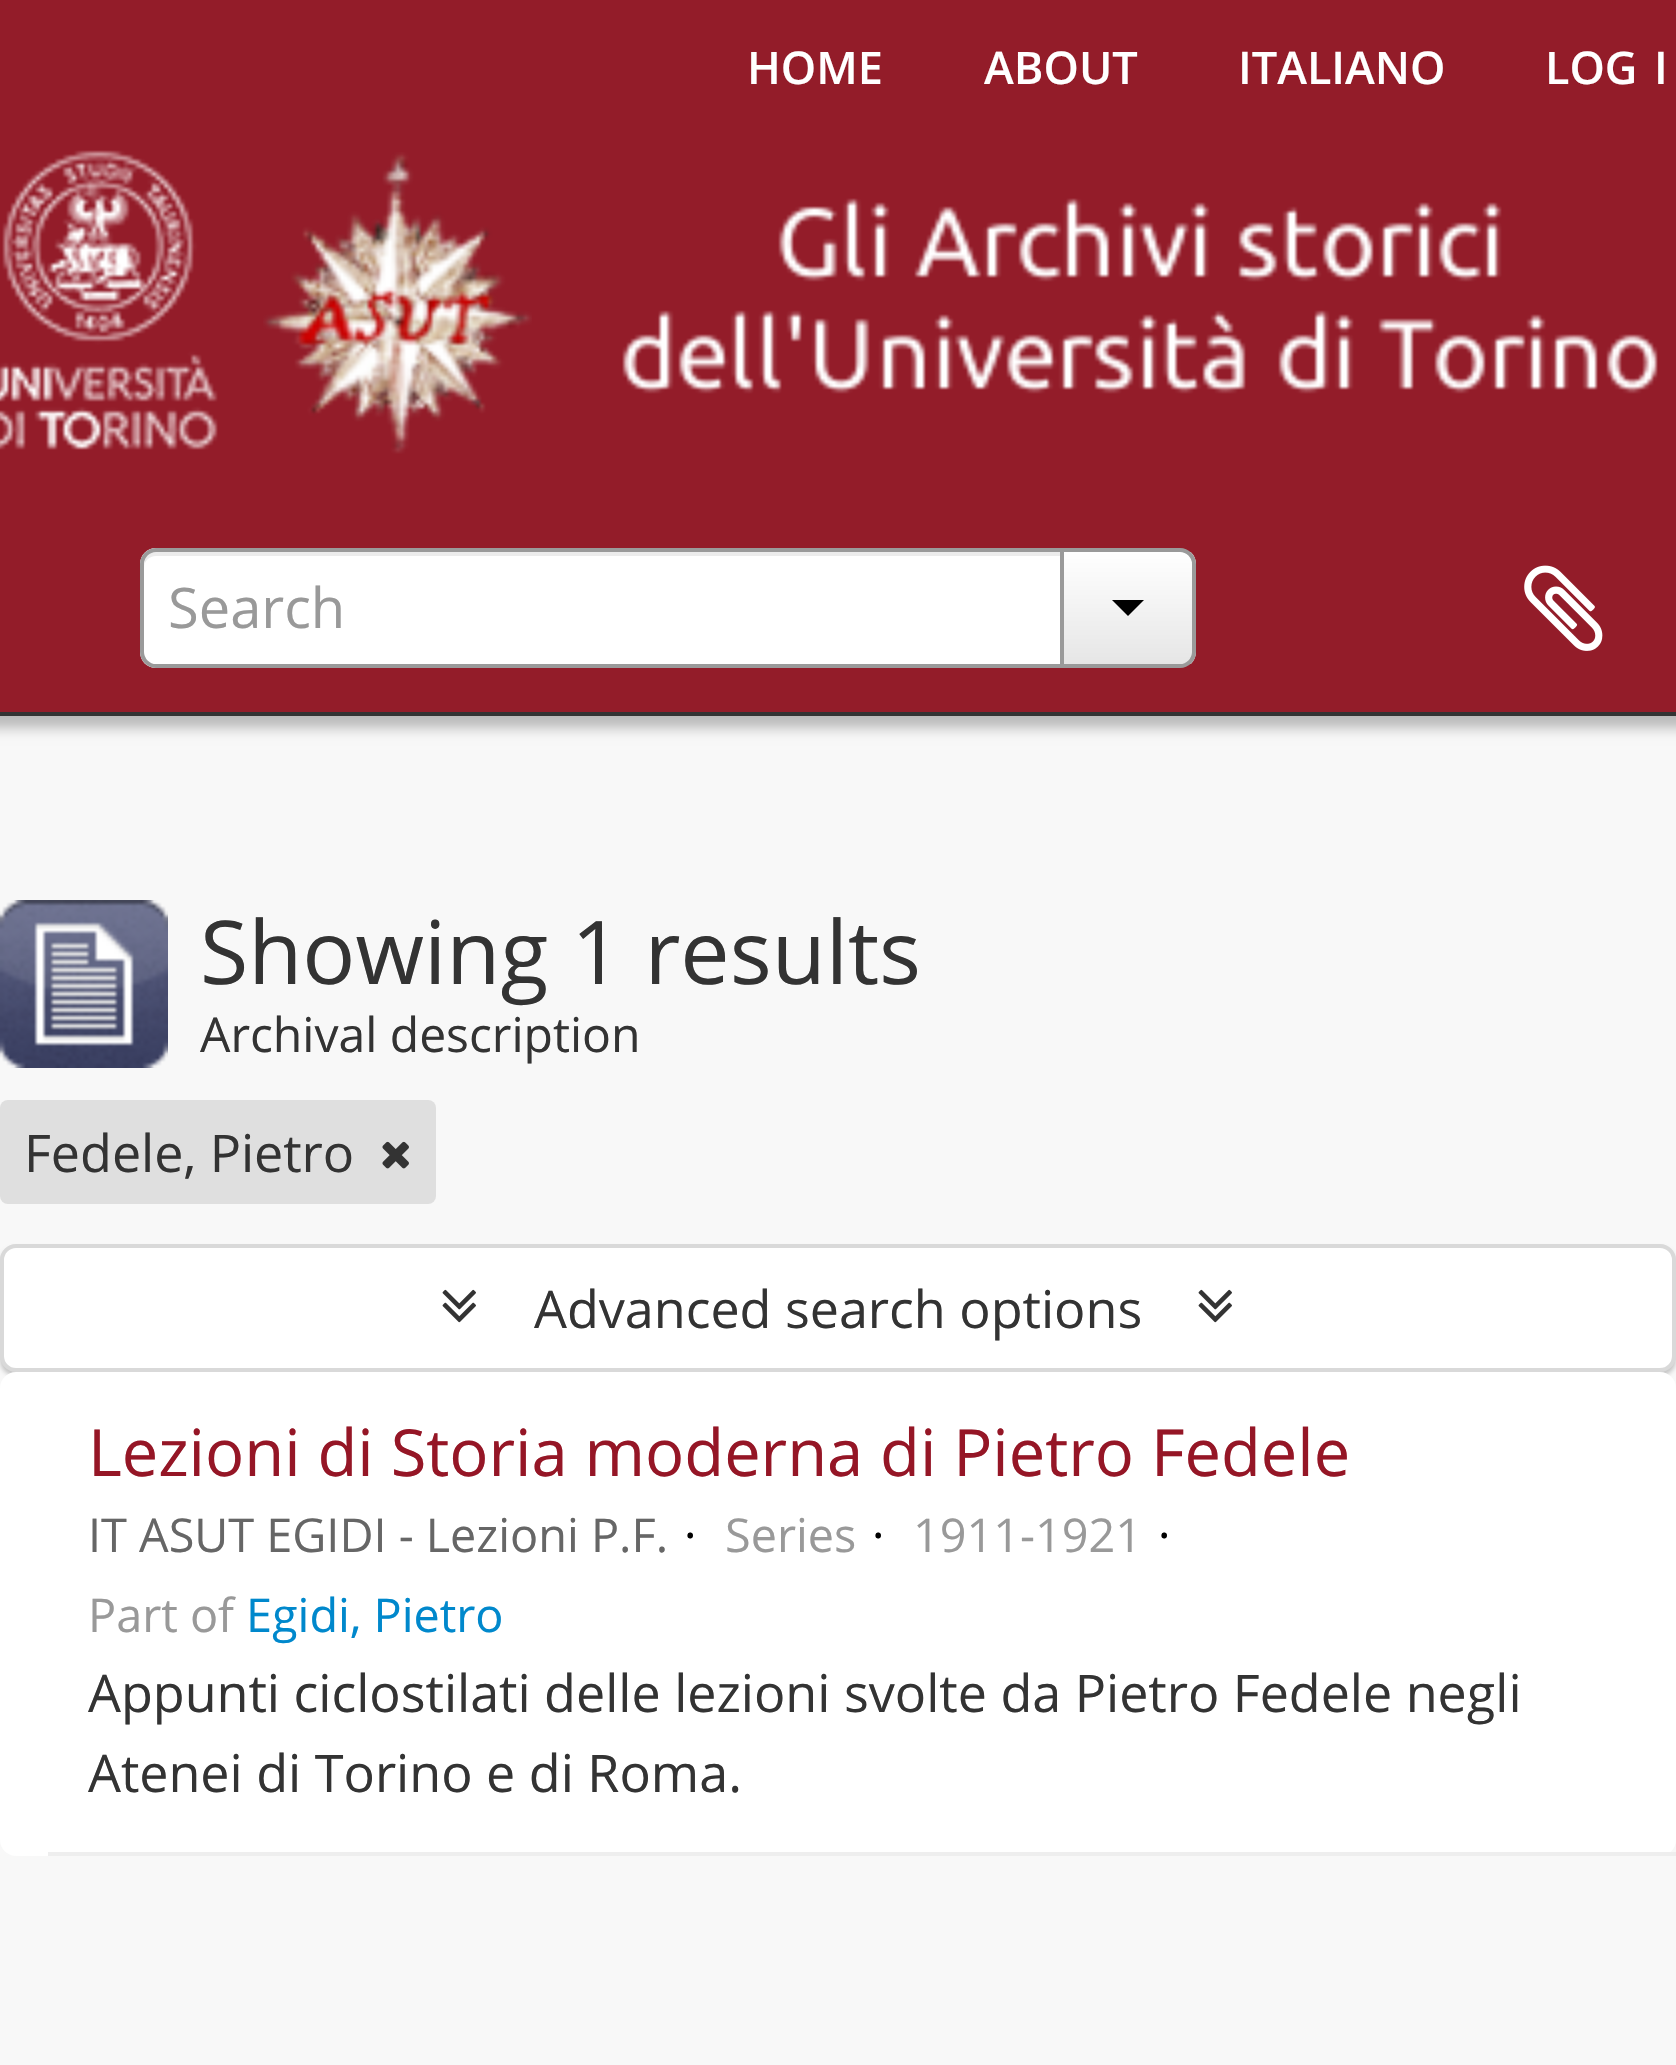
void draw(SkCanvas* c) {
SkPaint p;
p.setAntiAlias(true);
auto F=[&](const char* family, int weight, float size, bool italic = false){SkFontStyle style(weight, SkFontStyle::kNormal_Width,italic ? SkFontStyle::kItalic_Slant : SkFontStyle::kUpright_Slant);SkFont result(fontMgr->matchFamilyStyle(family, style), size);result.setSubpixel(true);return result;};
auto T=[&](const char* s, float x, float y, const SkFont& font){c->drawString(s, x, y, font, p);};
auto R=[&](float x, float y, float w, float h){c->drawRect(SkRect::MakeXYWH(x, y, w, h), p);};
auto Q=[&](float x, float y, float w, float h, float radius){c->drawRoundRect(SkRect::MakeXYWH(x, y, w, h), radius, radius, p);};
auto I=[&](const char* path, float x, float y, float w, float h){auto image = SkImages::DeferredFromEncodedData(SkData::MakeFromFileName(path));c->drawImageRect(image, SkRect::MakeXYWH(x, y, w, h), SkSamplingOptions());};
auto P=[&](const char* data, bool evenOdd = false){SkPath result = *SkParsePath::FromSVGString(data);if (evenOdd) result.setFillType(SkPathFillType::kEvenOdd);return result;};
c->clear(0xfff8f8f8);
p.setColor(0x40000000);
p.setMaskFilter(SkMaskFilter::MakeBlur(kNormal_SkBlurStyle, 6));
c->drawRect(SkRect::MakeXYWH(-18,12,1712,716),p);
p.setMaskFilter(nullptr);
p.setColor(0xff931c29);
R(0,0,1676,712);
p.setColor(0xff333333);
R(0,712,1676,4);
auto f1 = F("Open Sans",600,45);
p.setColor(0xffffffff);
T("HOME",747,84,f1);
T("ABOUT",984,84,f1);
T("ITALIANO",1238,84,f1);
T("LOG",1545,84,f1);
T("I",1654,84,f1);
I("1.png",0,150,218,300);
I("2.png",263,152,269,302);
I("3.png",622,198,1036,196);
c->drawPath(P("M156 548h908v120h-908c-9 0-16-7-16-16v-88c0-9 7-16 16-16z"),p);
p.setColor(0xffececec);
c->drawPath(P("M156 556h904v-4h-904c-10 0-12 8-12 16c0-7 5-12 12-12z"),p);
p.setStroke(true);
p.setStrokeWidth(4);
p.setColor(0xff9a9a9a);
c->drawPath(P("M156 550h906v116h-906c-7.5 0-14-6.5-14-14v-88c0-7.5 6.5-14 14-14z"),p);
auto f2 = F("Open Sans",400,56);
p.setStroke(false);
p.setColor(0xff999999);
T("Search",168,628,f2);
c->save();
c->clipPath(P("M1060 548h120c9 0 16 7 16 16v88c0 9-7 16-16 16h-120z"),true);
{
const SkColor colors[] = {0xffffffff,0xffe6e6e6};
const float stops[] = {0,1};
const SkPoint ends[] = {{1128,552}, {1128,664}};
p.setShader(SkGradientShader::MakeLinear(ends, colors, stops, 2, SkTileMode::kClamp));
p.setAlpha(255);
}
R(1064,552,132,112);
c->restore();
p.setStroke(true);
p.setShader(nullptr);
p.setColor(0xff9a9a9a);
c->drawPath(P("M1062 550h118c7.5 0 14 6.5 14 14v88c0 7.5-6.5 14-14 14h-118z"),p);
p.setStroke(false);
p.setColor(0xff000000);
c->drawPath(P("M1112 600h32l-16 16z"),p);
I("4.png",1524,565,79,86);
I("5.png",0,900,168,168);
auto f3 = F("Open Sans",400,88);
p.setColor(0xff333333);
T("Showing 1 results",200,984,f3);
auto f4 = F("Open Sans",400,48);
T("Archival description",200,1052,f4);
p.setColor(0xffdfdfdf);
Q(0,1100,436,104,8);
auto f5 = F("Open Sans",400,52);
p.setColor(0xff333333);
T("Fedele, Pietro",24,1172,f5);
I("6.png",382,1141,27,28);
p.setColor(0x33000000);
p.setMaskFilter(SkMaskFilter::MakeBlur(kNormal_SkBlurStyle, 2));
c->drawRoundRect(SkRect::MakeXYWH(0,1248,1676,128),16,16,p);
p.setMaskFilter(nullptr);
p.setColor(0xffffffff);
c->drawRoundRect(SkRect::MakeXYWH(2,1246,1672,124),14,14,p);
p.setStroke(true);
p.setColor(0xffd9d9d9);
c->drawRoundRect(SkRect::MakeXYWH(2,1246,1672,124),14,14,p);
I("7.png",442,1289,34,34);
p.setStroke(false);
p.setColor(0xff333333);
T("Advanced search options",534,1328,f5);
I("7.png",1198,1289,34,34);
p.setColor(0xffffffff);
Q(0,1372,1676,484,16);
p.setColor(0xffeeeeee);
R(48,1852,1628,4);
auto f6 = F("Open Sans",400,65);
p.setColor(0xff951626);
T("Lezioni di Storia moderna di Pietro Fedele",88,1476,f6);
auto f7 = F("Open Sans",400,46.75);
p.setColor(0xff666666);
T("IT ASUT EGIDI - Lezioni P.F.",88,1552,f7);
p.setColor(0xff000000);
T("·",684,1552,f7);
p.setColor(0xff999999);
T("Series",725,1552,f7);
p.setColor(0xff000000);
T("·",872,1552,f7);
p.setColor(0xff999999);
T("1911-1921",913,1552,f7);
p.setColor(0xff000000);
T("·",1158,1552,f7);
p.setColor(0xff999999);
T("Part of",88,1632,f7);
p.setColor(0xff0088cc);
T("Egidi, Pietro",246,1632,f7);
p.setColor(0xff333333);
T("Appunti ciclostilati delle lezioni svolte da Pietro Fedele negli",88,1712,f5);
T("Atenei di Torino e di Roma.",88,1792,f5);
}
